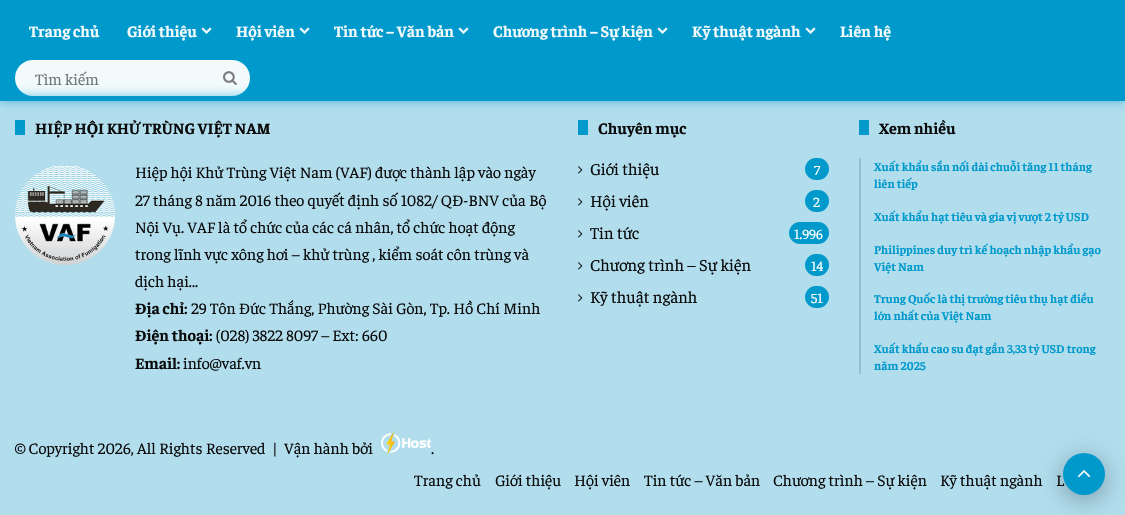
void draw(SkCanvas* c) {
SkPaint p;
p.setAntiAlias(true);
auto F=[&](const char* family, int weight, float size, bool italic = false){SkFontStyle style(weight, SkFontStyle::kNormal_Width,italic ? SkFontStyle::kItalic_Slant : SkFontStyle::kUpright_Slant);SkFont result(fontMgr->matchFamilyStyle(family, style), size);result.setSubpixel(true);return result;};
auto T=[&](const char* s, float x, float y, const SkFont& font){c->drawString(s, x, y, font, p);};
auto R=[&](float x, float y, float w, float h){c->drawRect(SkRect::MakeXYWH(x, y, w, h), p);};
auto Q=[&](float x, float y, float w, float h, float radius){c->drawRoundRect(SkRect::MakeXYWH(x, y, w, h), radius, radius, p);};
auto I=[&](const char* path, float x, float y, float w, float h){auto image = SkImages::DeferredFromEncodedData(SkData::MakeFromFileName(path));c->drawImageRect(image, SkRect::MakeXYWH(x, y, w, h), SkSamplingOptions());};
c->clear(0xffb1dded);
p.setColor(0x33636363);
p.setMaskFilter(SkMaskFilter::MakeBlur(kNormal_SkBlurStyle, 4));
c->drawRect(SkRect::MakeXYWH(0,2,1125,96),p);
p.setMaskFilter(nullptr);
p.setColor(0xff0099cc);
R(0,0,1125,96);
auto f1 = F("Faustina",700,16);
p.setColor(0xfff2fafc);
T("Trang chủ",29,37,f1);
T("Giới thiệu",127,37,f1);
I("1.png",201,27,11,7);
T("Hội viên",236,37,f1);
I("1.png",299,27,11,7);
T("Tin tức – Văn bản",334,37,f1);
I("1.png",458,27,11,7);
T("Chương trình – Sự kiện",493,37,f1);
I("1.png",657,27,11,7);
T("Kỹ thuật ngành",692,37,f1);
I("1.png",805,27,11,7);
T("Liên hệ",840,37,f1);
Q(15,60,235,36,18);
auto f2 = F("Faustina",400,16);
p.setColor(0xff6f7779);
T("Tìm kiếm",35,85,f2);
I("2.png",223,71,14,14);
p.setColor(0xb30099cc);
p.setMaskFilter(SkMaskFilter::MakeBlur(kNormal_SkBlurStyle, 5));
c->drawRect(SkRect::MakeXYWH(0,96,1125,5),p);
p.setMaskFilter(nullptr);
p.setColor(0xff0099cc);
R(0,96,1125,5);
R(15,120,10,15);
p.setColor(0xff0a0a0a);
T("HIỆP HỘI KHỬ TRÙNG VIỆT NAM",35,134,f1);
I("3.png",15,165,100,100);
T("Hiệp hội Khử Trùng Việt Nam (VAF) được thành lập vào ngày",135,178,f2);
T("27 tháng 8 năm 2016 theo quyết định số 1082/ QĐ-BNV của Bộ",135,206,f2);
T("Nội Vụ. VAF là tổ chức của các cá nhân, tổ chức hoạt động",135,233,f2);
T("trong lĩnh vực xông hơi – khử trùng , kiểm soát côn trùng và",135,260,f2);
T("dịch hại...",135,287,f2);
T("Địa chỉ:",135,314,f1);
T("29 Tôn Đức Thắng, Phường Sài Gòn, Tp. Hồ Chí Minh",191,314,f2);
T("Điện thoại:",135,341,f1);
T("(028) 3822 8097 – Ext: 660",216,341,f2);
T("Email:",135,369,f1);
T("info@vaf.vn",183,369,f2);
p.setColor(0xff0099cc);
R(578,120,10,15);
p.setColor(0xff0a0a0a);
T("Chuyên mục",598,134,f1);
I("4.png",578,166,5,8);
auto f3 = F("Faustina",400,16.75);
T("Giới thiệu",590,175,f3);
p.setColor(0xff0099cc);
Q(805,158,24,22,11);
auto f4 = F("Faustina",400,14);
p.setColor(0xffffffff);
T("7",814,175,f4);
I("4.png",578,198,5,8);
p.setColor(0xff0a0a0a);
T("Hội viên",590,207,f3);
p.setColor(0xff0099cc);
Q(805,190,24,22,11);
p.setColor(0xffffffff);
T("2",813,207,f4);
I("4.png",578,230,5,8);
p.setColor(0xff0a0a0a);
T("Tin tức",590,239,f3);
p.setColor(0xff0099cc);
Q(789,222,40,22,11);
p.setColor(0xffffffff);
T("1.996",794,239,f4);
I("4.png",578,262,5,8);
p.setColor(0xff0a0a0a);
T("Chương trình – Sự kiện",590,271,f3);
p.setColor(0xff0099cc);
Q(805,254,24,22,11);
p.setColor(0xffffffff);
T("14",811,271,f4);
I("4.png",578,294,5,8);
p.setColor(0xff0a0a0a);
T("Kỹ thuật ngành",590,303,f3);
p.setColor(0xff0099cc);
Q(805,286,24,22,11);
p.setColor(0xffffffff);
T("51",811,303,f4);
p.setColor(0xff0099cc);
R(859,120,10,15);
p.setColor(0xff0a0a0a);
T("Xem nhiều",879,134,f1);
p.setColor(0xff93bfcf);
R(859,158,2,216);
auto f5 = F("Faustina",700,12);
p.setColor(0xff0099cc);
T("Xuất khẩu sắn nối dài chuỗi tăng 11 tháng",874,171,f5);
T("liên tiếp",874,188,f5);
T("Xuất khẩu hạt tiêu và gia vị vượt 2 tỷ USD",874,221,f5);
T("Philippines duy trì kế hoạch nhập khẩu gạo",874,254,f5);
T("Việt Nam",874,271,f5);
T("Trung Quốc là thị trường tiêu thụ hạt điều",874,303,f5);
T("lớn nhất của Việt Nam",874,320,f5);
T("Xuất khẩu cao su đạt gần 3,33 tỷ USD trong",874,353,f5);
T("năm 2025",874,370,f5);
p.setColor(0xff0a0a0a);
T("© Copyright 2026, All Rights Reserved  |",15,454,f2);
T("Vận hành bởi",284,454,f2);
I("5.png",381,431,50,23);
T(".",431,454,f2);
T("Trang chủ",414,486,f2);
T("Giới thiệu",495,486,f2);
T("Hội viên",574,486,f2);
T("Tin tức – Văn bản",644,486,f2);
T("Chương trình – Sự kiện",773,486,f2);
T("Kỹ thuật ngành",940,486,f2);
T("L",1056,486,f2);
p.setColor(0x4d000000);
p.setMaskFilter(SkMaskFilter::MakeBlur(kNormal_SkBlurStyle, 12.5));
c->drawRoundRect(SkRect::MakeXYWH(1063,458,42,42),21,21,p);
p.setMaskFilter(nullptr);
p.setColor(0xff0099cc);
c->drawCircle(1084,474,21,p);
I("6.png",1078,470,13,8);
}
